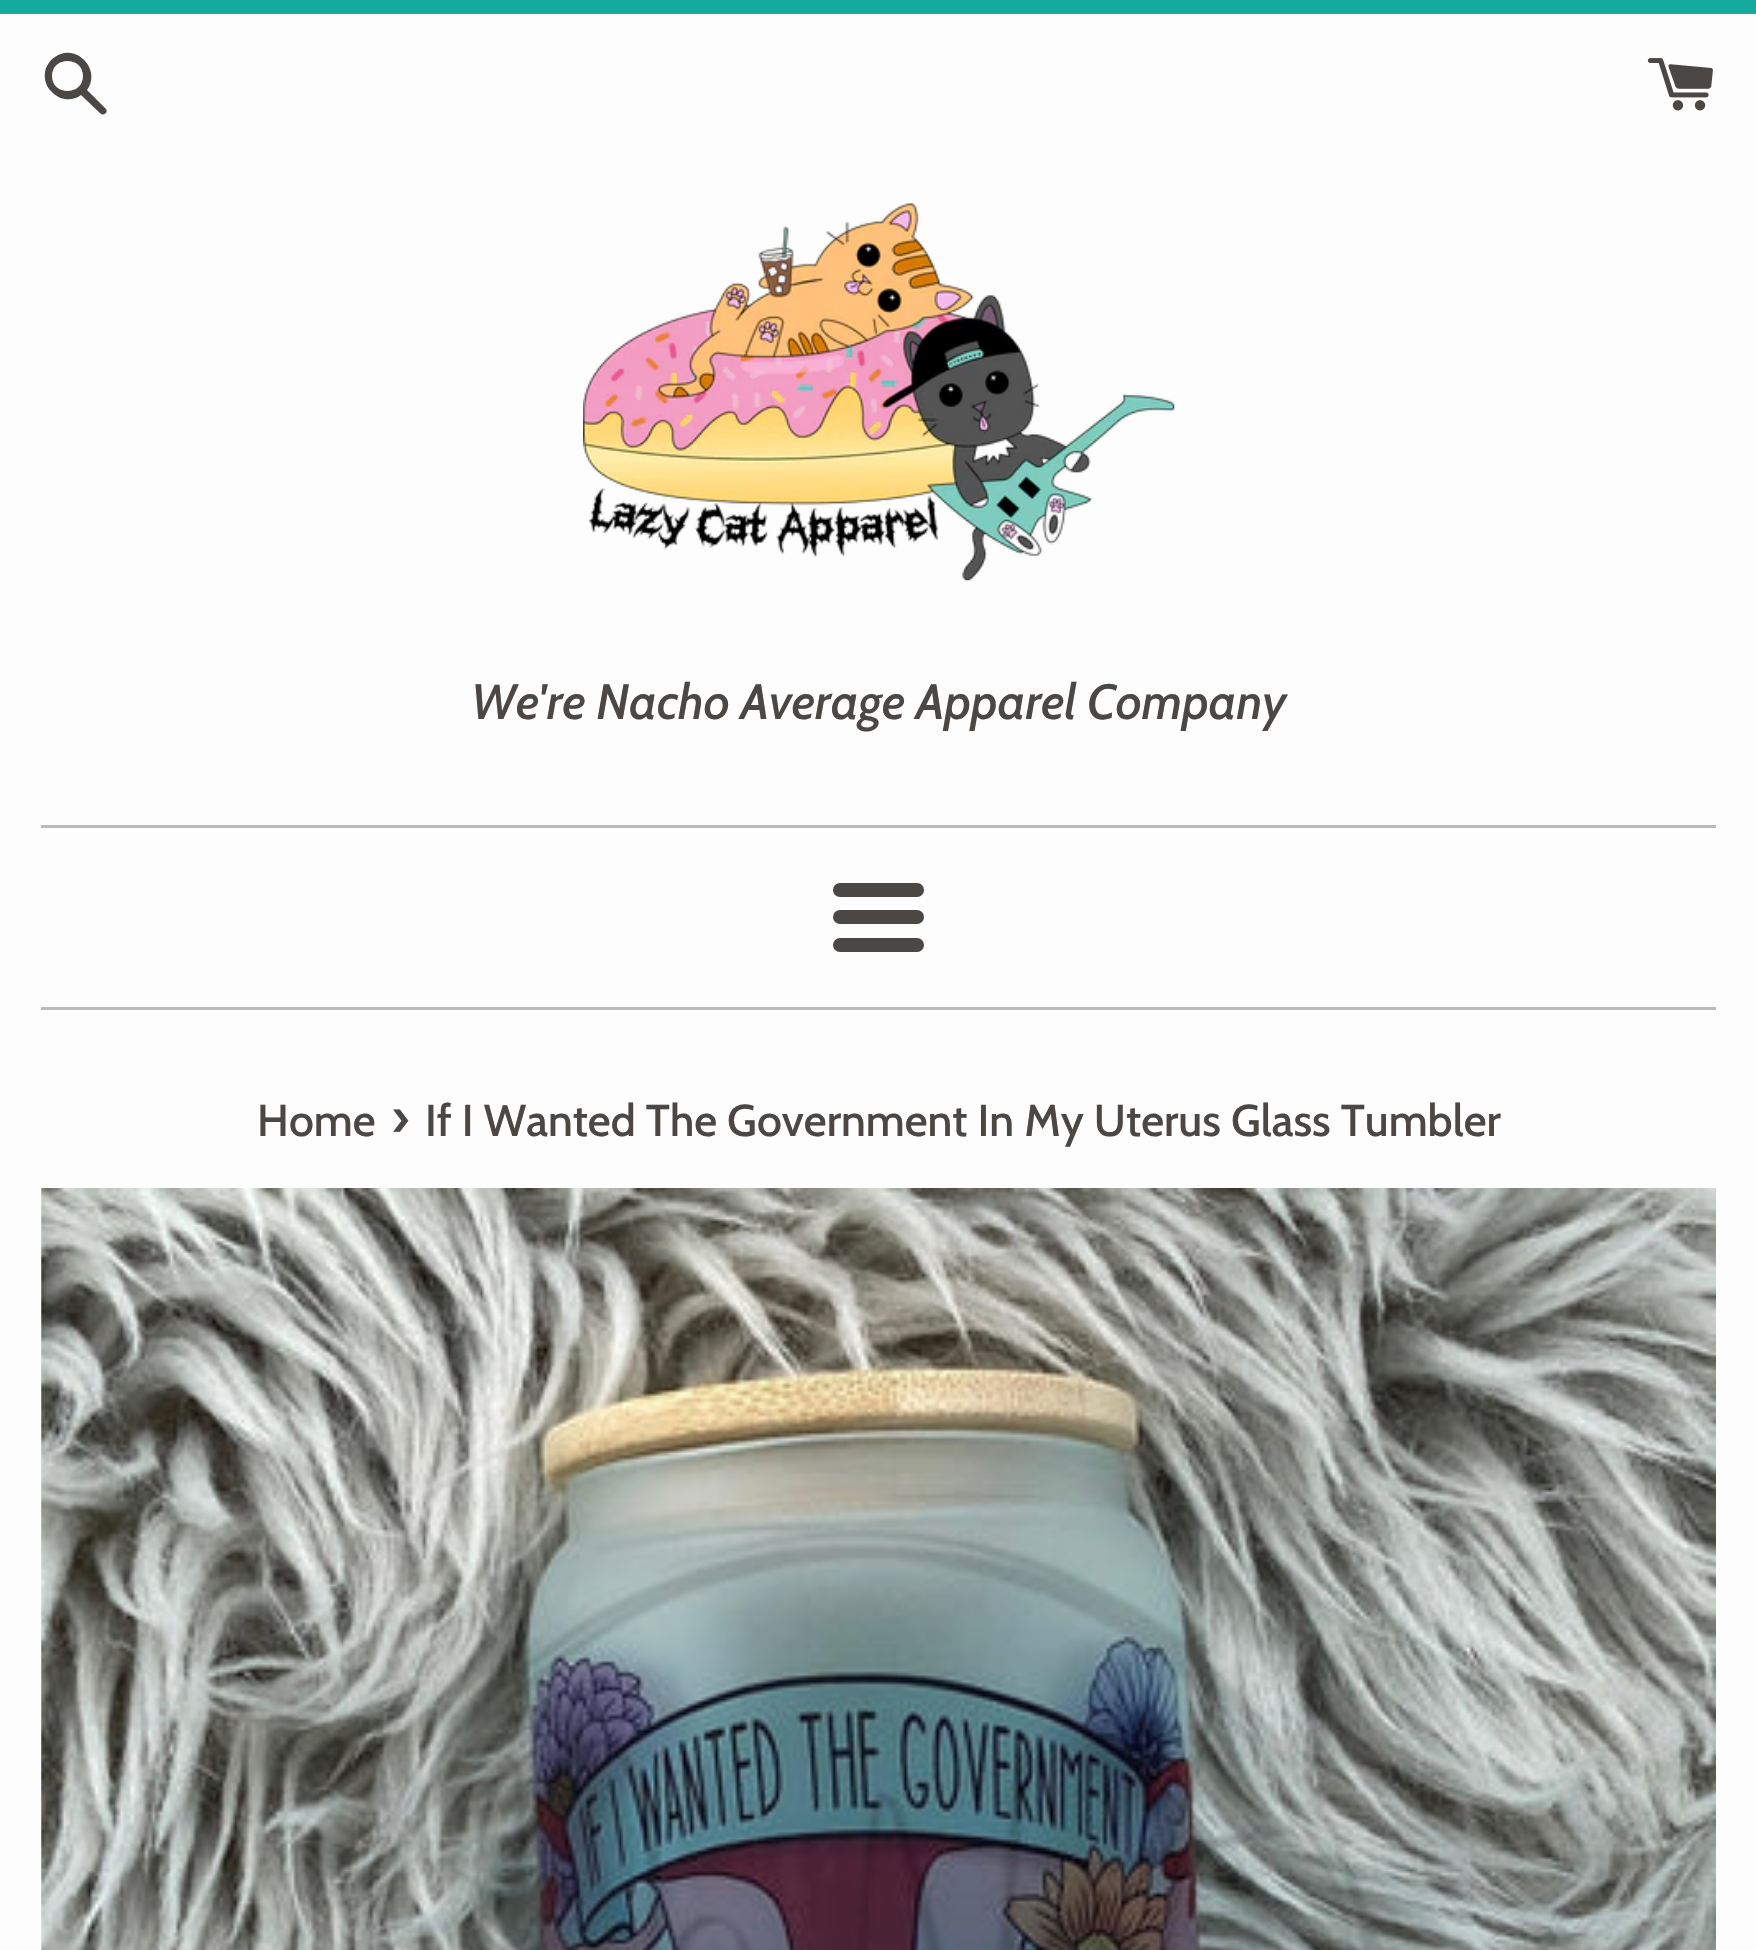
void draw(SkCanvas* c) {
SkPaint p;
p.setAntiAlias(true);
auto F=[&](const char* family, int weight, float size, bool italic = false){SkFontStyle style(weight, SkFontStyle::kNormal_Width,italic ? SkFontStyle::kItalic_Slant : SkFontStyle::kUpright_Slant);SkFont result(fontMgr->matchFamilyStyle(family, style), size);result.setSubpixel(true);return result;};
auto T=[&](const char* s, float x, float y, const SkFont& font){c->drawString(s, x, y, font, p);};
auto R=[&](float x, float y, float w, float h){c->drawRect(SkRect::MakeXYWH(x, y, w, h), p);};
auto Q=[&](float x, float y, float w, float h, float radius){c->drawRoundRect(SkRect::MakeXYWH(x, y, w, h), radius, radius, p);};
auto I=[&](const char* path, float x, float y, float w, float h){auto image = SkImages::DeferredFromEncodedData(SkData::MakeFromFileName(path));c->drawImageRect(image, SkRect::MakeXYWH(x, y, w, h), SkSamplingOptions());};
auto P=[&](const char* data, bool evenOdd = false){SkPath result = *SkParsePath::FromSVGString(data);if (evenOdd) result.setFillType(SkPathFillType::kEvenOdd);return result;};
c->clear(0xfffdfdfd);
p.setColor(0xff16a99e);
R(0,0,1756,14);
p.setColor(0xff4b4745);
c->drawPath(P("M105 108l-18-18c15-20-11-48-32-33c-5 3-9 9-10 15c-1 7 1 15 7 20c7 8 20 10 29 3l20 19c4 2 8-3 4-6zm-53-32c0-20 31-20 31 0c0 20-31 20-31 0z"),p);
I("1.png",1647,58,66,53);
I("2.png",583,203,592,378);
auto f1 = F("Cabin",500,49.5,true);
T("We're Nacho Average Apparel Company",471,719,f1);
p.setColor(0xffbababa);
R(41,825,1675,3);
p.setColor(0xff4b4745);
Q(833,883,91,14,7);
Q(833,910,91,14,7);
Q(833,938,91,14,7);
p.setColor(0xffbababa);
R(41,1007,1675,3);
auto f2 = F("Cabin",500,44.55);
p.setColor(0xff4b4745);
T("Home",257,1136,f2);
auto f3 = F("Cabin",500,54);
T("›",391,1136,f3);
T("If I Wanted The Government In My Uterus Glass Tumbler",425,1136,f2);
I("3.png",41,1188,1675,762);
}
